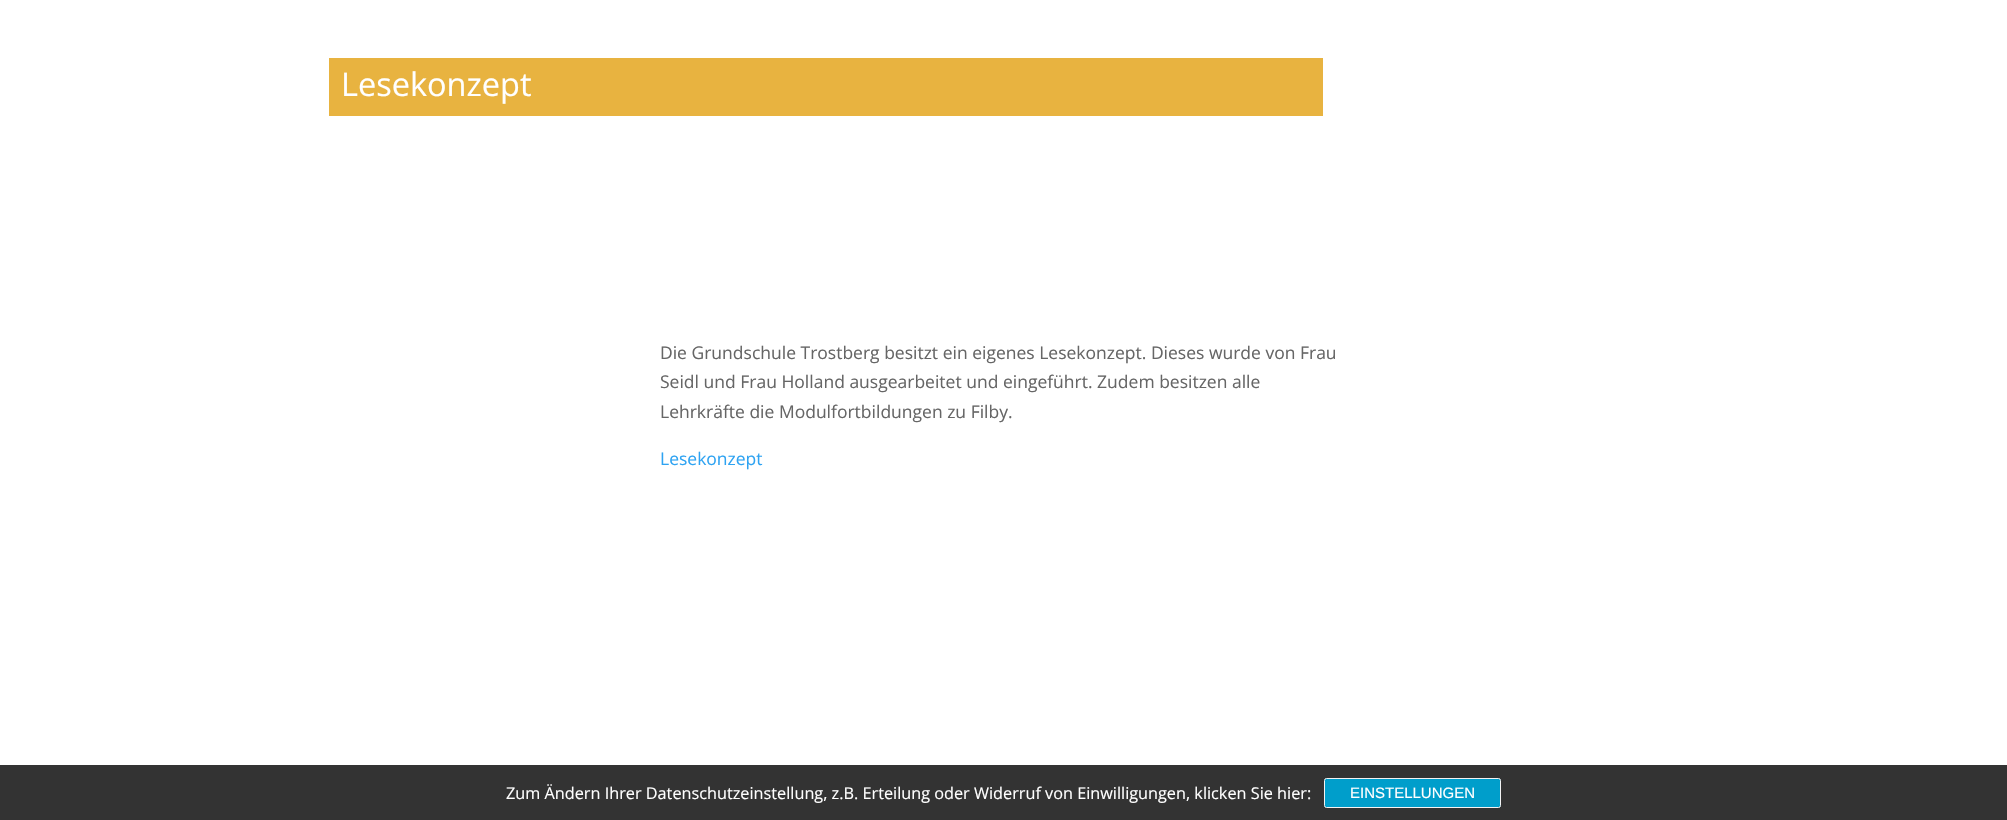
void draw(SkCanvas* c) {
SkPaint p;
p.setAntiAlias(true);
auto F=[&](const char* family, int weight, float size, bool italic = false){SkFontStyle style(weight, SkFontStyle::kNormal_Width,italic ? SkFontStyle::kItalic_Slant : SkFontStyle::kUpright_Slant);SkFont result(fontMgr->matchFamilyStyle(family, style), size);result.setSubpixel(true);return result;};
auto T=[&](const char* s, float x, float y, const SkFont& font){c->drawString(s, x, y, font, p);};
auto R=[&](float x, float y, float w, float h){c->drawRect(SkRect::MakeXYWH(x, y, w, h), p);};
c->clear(0xffffffff);
p.setColor(0xffe8b340);
R(329,58,994,58);
auto f1 = F("Open Sans",400,32.5);
p.setColor(0xffffffff);
T("Lesekonzept",341,96,f1);
auto f2 = F("Open Sans",400,17.5);
p.setColor(0xff666666);
T("Die Grundschule Trostberg besitzt ein eigenes Lesekonzept. Dieses wurde von Frau",660,359,f2);
T("Seidl und Frau Holland ausgearbeitet und eingeführt. Zudem besitzen alle",660,388,f2);
T("Lehrkräfte die Modulfortbildungen zu Filby.",660,418,f2);
p.setColor(0xff2ea3f2);
T("Lesekonzept",660,465,f2);
p.setColor(0xff333333);
R(0,765,2007,55);
auto f3 = F("Open Sans",400,16.25);
p.setColor(0xffffffff);
T("Zum Ändern Ihrer Datenschutzeinstellung, z.B. Erteilung oder Widerruf von Einwilligungen, klicken Sie hier:",506,799,f3);
p.setColor(0xff009ecb);
c->drawRoundRect(SkRect::MakeXYWH(1324.5,778.5,176,29),2,2,p);
p.setStroke(true);
p.setStrokeWidth(1);
p.setColor(0xfff3f3f3);
c->drawRoundRect(SkRect::MakeXYWH(1324.5,778.5,176,29),2,2,p);
auto f4 = F("Liberation Sans",400,15);
p.setStroke(false);
p.setColor(0xffffffff);
T("EINSTELLUNGEN",1350,798,f4);
}
